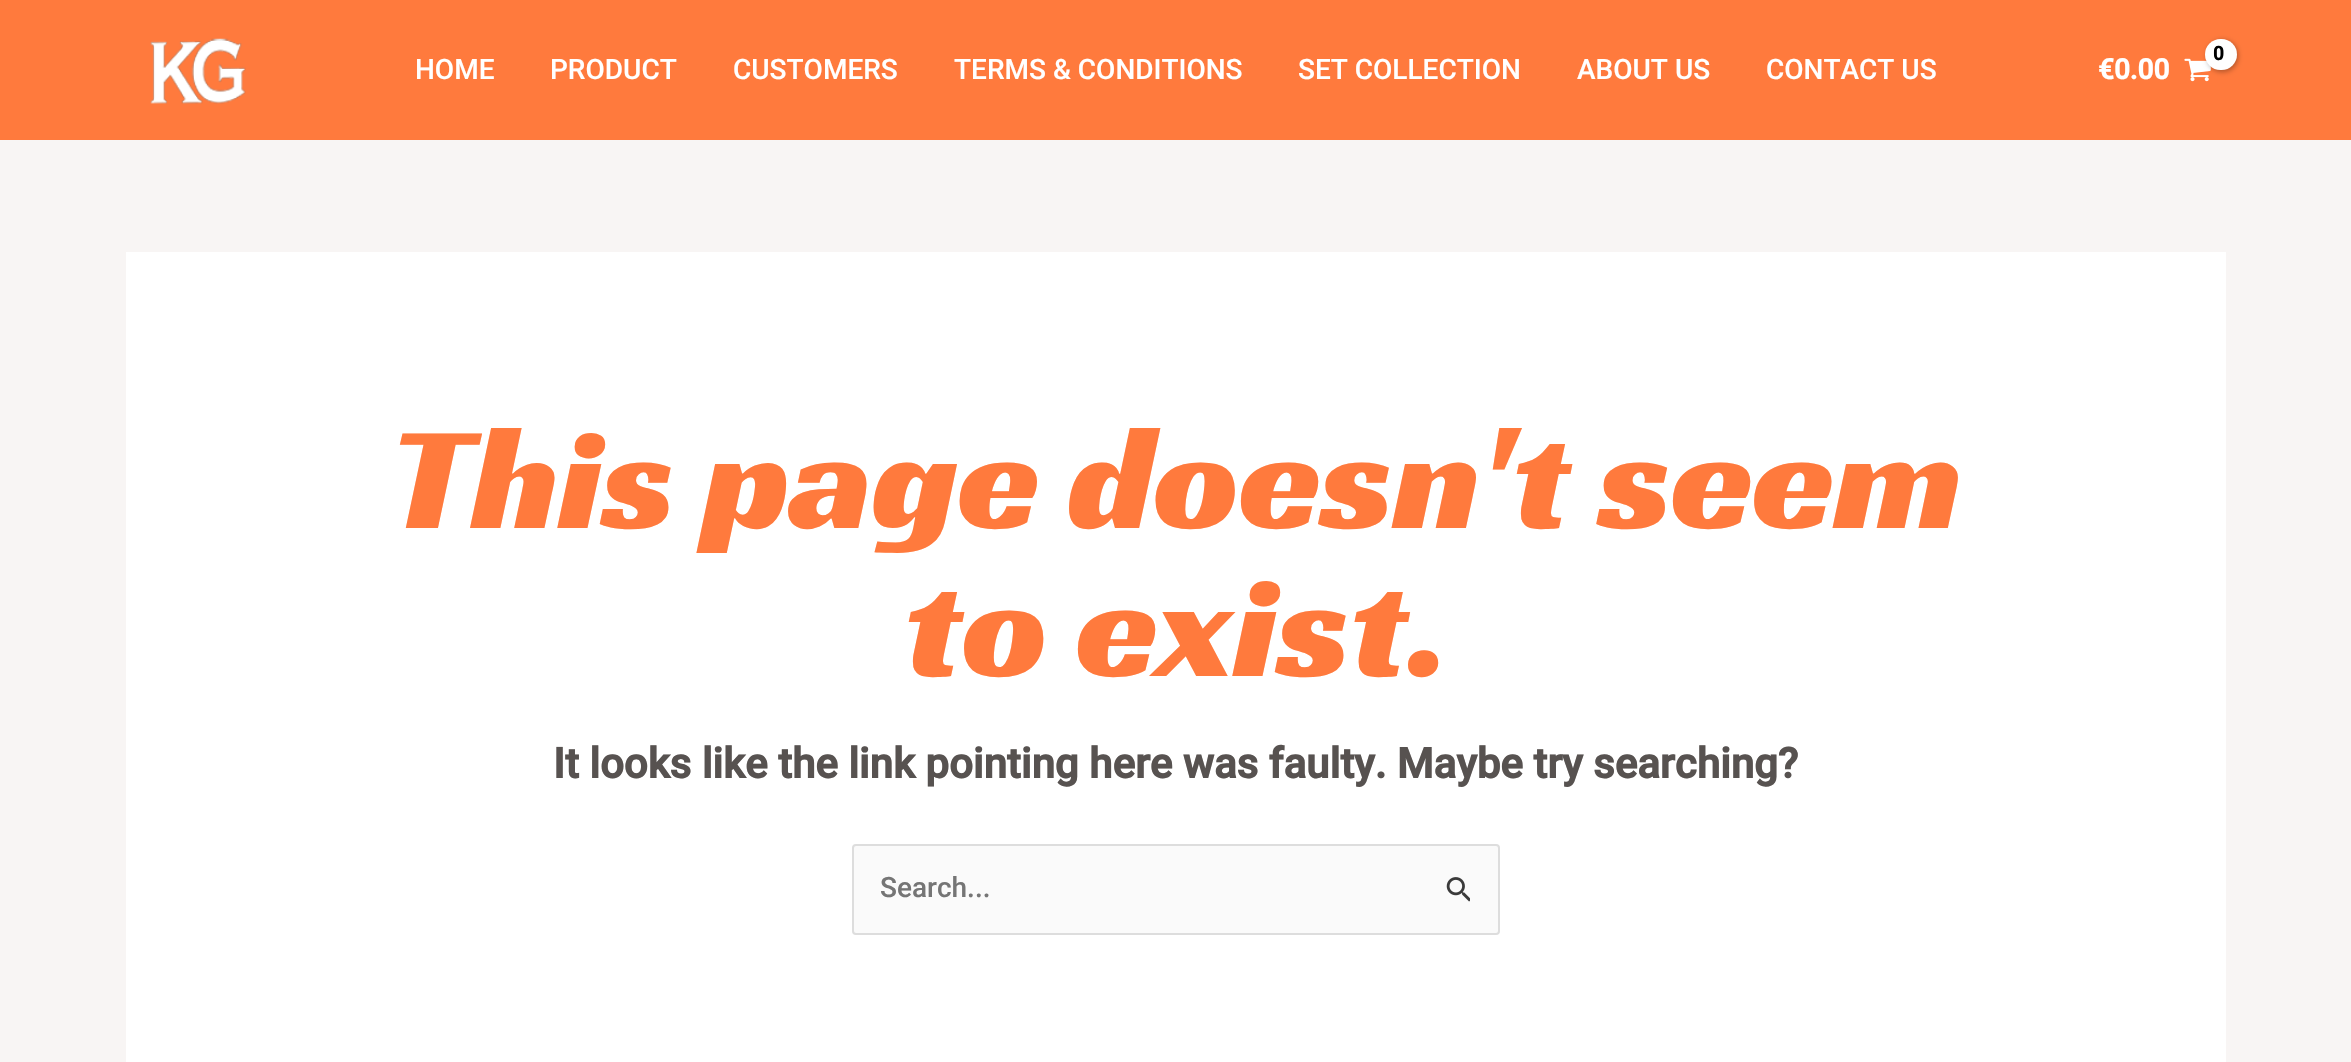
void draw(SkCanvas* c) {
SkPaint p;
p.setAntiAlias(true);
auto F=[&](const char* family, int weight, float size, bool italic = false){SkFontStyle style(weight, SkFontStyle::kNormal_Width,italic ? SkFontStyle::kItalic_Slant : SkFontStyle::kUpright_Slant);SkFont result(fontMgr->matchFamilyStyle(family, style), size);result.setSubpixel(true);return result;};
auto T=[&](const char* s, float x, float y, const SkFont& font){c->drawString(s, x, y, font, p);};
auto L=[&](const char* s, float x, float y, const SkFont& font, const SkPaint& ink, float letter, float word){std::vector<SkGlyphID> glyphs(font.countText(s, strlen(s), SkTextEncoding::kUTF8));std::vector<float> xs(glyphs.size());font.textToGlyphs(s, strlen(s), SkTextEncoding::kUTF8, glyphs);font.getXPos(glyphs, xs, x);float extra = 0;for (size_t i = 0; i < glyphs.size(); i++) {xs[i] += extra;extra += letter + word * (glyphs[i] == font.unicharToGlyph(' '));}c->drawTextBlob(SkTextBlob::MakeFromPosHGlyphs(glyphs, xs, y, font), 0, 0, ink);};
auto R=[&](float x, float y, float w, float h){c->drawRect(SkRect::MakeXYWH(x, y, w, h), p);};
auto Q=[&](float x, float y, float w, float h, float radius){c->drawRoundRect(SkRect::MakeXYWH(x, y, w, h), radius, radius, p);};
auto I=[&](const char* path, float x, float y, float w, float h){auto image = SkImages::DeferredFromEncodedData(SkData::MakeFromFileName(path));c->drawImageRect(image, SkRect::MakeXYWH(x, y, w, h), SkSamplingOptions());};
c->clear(0xfff8f5f4);
p.setColor(0xffff7a3d);
R(0,0,2351,140);
I("1.png",150,38,96,66);
auto f1 = F("Roboto",500,28);
p.setColor(0xffffffff);
T("HOME",415,79,f1);
T("PRODUCT",550,79,f1);
T("CUSTOMERS",733,79,f1);
T("TERMS & CONDITIONS",954,79,f1);
T("SET COLLECTION",1298,79,f1);
T("ABOUT US",1577,79,f1);
T("CONTACT US",1766,79,f1);
I("2.png",2184,58,27,24);
p.setColor(0x4d000000);
p.setMaskFilter(SkMaskFilter::MakeBlur(kNormal_SkBlurStyle, 2.5));
c->drawRoundRect(SkRect::MakeXYWH(2207,40,31,32),15.5,15.5,p);
p.setMaskFilter(nullptr);
p.setColor(0xffffffff);
Q(2205,39,32,31,15.5);
auto f2 = F("Roboto",700,19);
p.setColor(0xff000000);
L("0",2213,60,f2,p,-1,0);
auto f3 = F("Roboto",700,28);
p.setColor(0xffffffff);
T("€0.00",2098,79,f3);
R(126,252,2100,810);
auto f4 = F("Racing Sans One",400,148.75);
p.setColor(0xffff7a3d);
T("This page doesn't seem",389,528,f4);
T("to exist.",904,676,f4);
auto f5 = F("Roboto",700,42);
p.setColor(0xff575250);
T("It looks like the link pointing here was faulty. Maybe try searching?",553,778,f5);
p.setColor(0xfffafafa);
c->drawRoundRect(SkRect::MakeXYWH(853,845,646,89),3,3,p);
p.setStroke(true);
p.setStrokeWidth(2);
p.setColor(0xffdddddd);
c->drawRoundRect(SkRect::MakeXYWH(853,845,646,89),3,3,p);
p.setStroke(false);
p.setColor(0xff757575);
T("Search...",880,897,f1);
I("3.png",1446,877,24,25);
}
